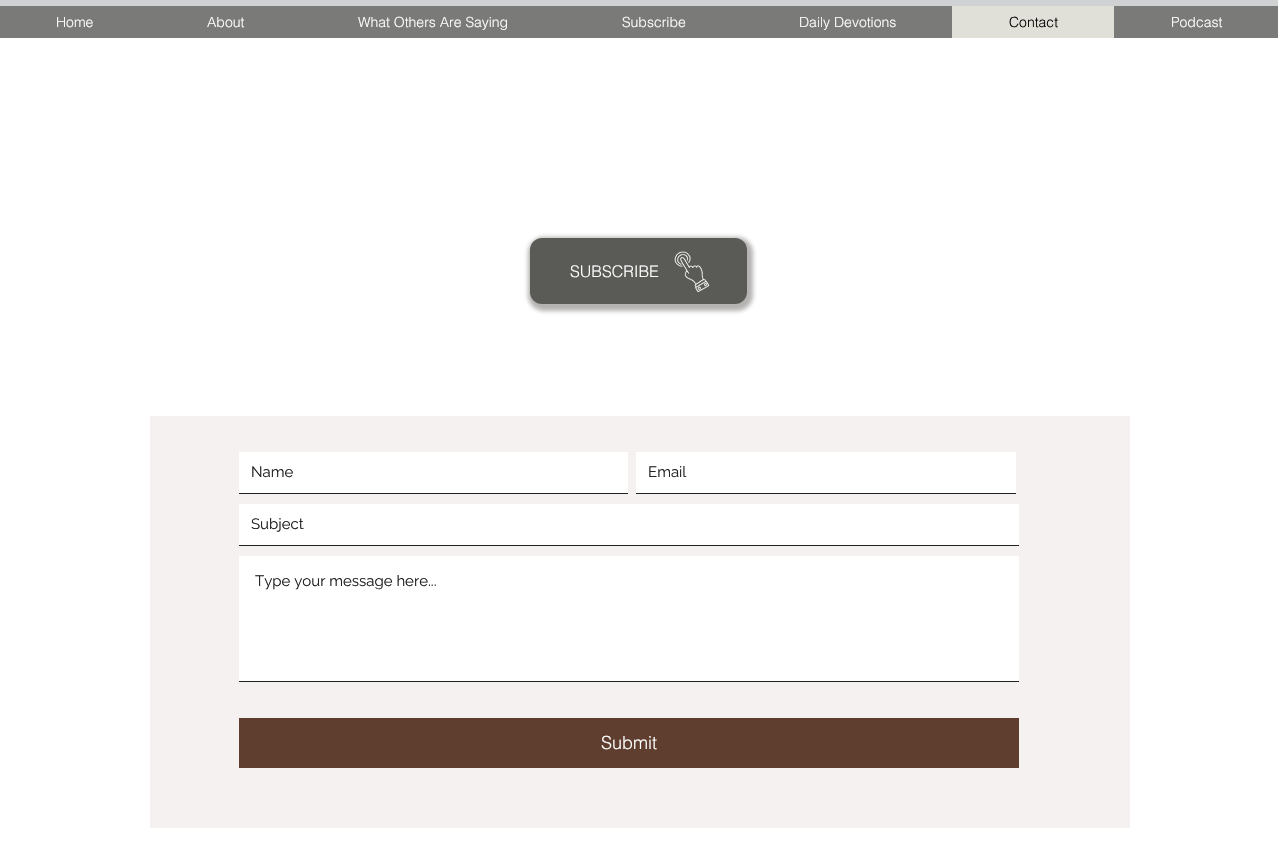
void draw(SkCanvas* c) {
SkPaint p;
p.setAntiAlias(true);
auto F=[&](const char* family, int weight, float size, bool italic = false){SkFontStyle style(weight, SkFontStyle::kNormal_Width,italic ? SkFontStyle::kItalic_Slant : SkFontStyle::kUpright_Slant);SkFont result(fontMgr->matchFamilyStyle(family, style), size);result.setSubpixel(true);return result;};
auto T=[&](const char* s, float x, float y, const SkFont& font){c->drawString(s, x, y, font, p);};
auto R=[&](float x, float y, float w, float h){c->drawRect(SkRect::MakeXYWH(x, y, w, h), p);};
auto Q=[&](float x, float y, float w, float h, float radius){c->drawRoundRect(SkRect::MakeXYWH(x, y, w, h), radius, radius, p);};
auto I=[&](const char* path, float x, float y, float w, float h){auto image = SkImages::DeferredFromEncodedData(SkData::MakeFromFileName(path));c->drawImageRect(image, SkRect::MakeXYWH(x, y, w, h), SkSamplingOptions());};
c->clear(0xffcfd1d3);
p.setColor(0xff7a7a78);
R(0,6,1278,32);
auto f1 = F("helvetica",300,14);
p.setColor(0xffffffff);
T("Home",56,27,f1);
T("About",207,27,f1);
T("What Others Are Saying",358,27,f1);
T("Subscribe",622,27,f1);
T("Daily Devotions",799,27,f1);
p.setColor(0xffe0e0d8);
R(952,6,162,32);
p.setColor(0xff000000);
T("Contact",1009,27,f1);
p.setColor(0xffffffff);
T("Podcast",1171,27,f1);
R(0,38,1278,813);
p.setColor(0x5c312c29);
p.setMaskFilter(SkMaskFilter::MakeBlur(kNormal_SkBlurStyle, 2));
c->drawRoundRect(SkRect::MakeXYWH(528,237,225,74),16,16,p);
p.setMaskFilter(nullptr);
p.setColor(0xff5a5a56);
Q(530,238,217,66,12);
auto f2 = F("helvetica",300,16);
p.setColor(0xffffffff);
T("SUBSCRIBE",570,277,f2);
I("1.png",674,251,36,42);
p.setColor(0xfff6f1f1);
R(150,416,980,412);
p.setColor(0xffffffff);
R(239,452,389,41);
p.setColor(0xff202123);
R(239,493,389,1);
auto f3 = F("Raleway",400,15);
T("Name",251,477,f3);
p.setColor(0xffffffff);
R(636,452,380,41);
p.setColor(0xff202123);
R(636,493,380,1);
T("Email",648,477,f3);
p.setColor(0xffffffff);
R(239,504,780,41);
p.setColor(0xff202123);
R(239,545,780,1);
T("Subject",251,529,f3);
p.setColor(0xffffffff);
R(239,556,780,125);
p.setColor(0xff202123);
R(239,681,780,1);
T("Type your message here...",255,586,f3);
p.setColor(0xff5f3e2f);
R(239,718,780,50);
auto f4 = F("helvetica",300,18);
p.setColor(0xffffffff);
T("Submit",601,749,f4);
}
